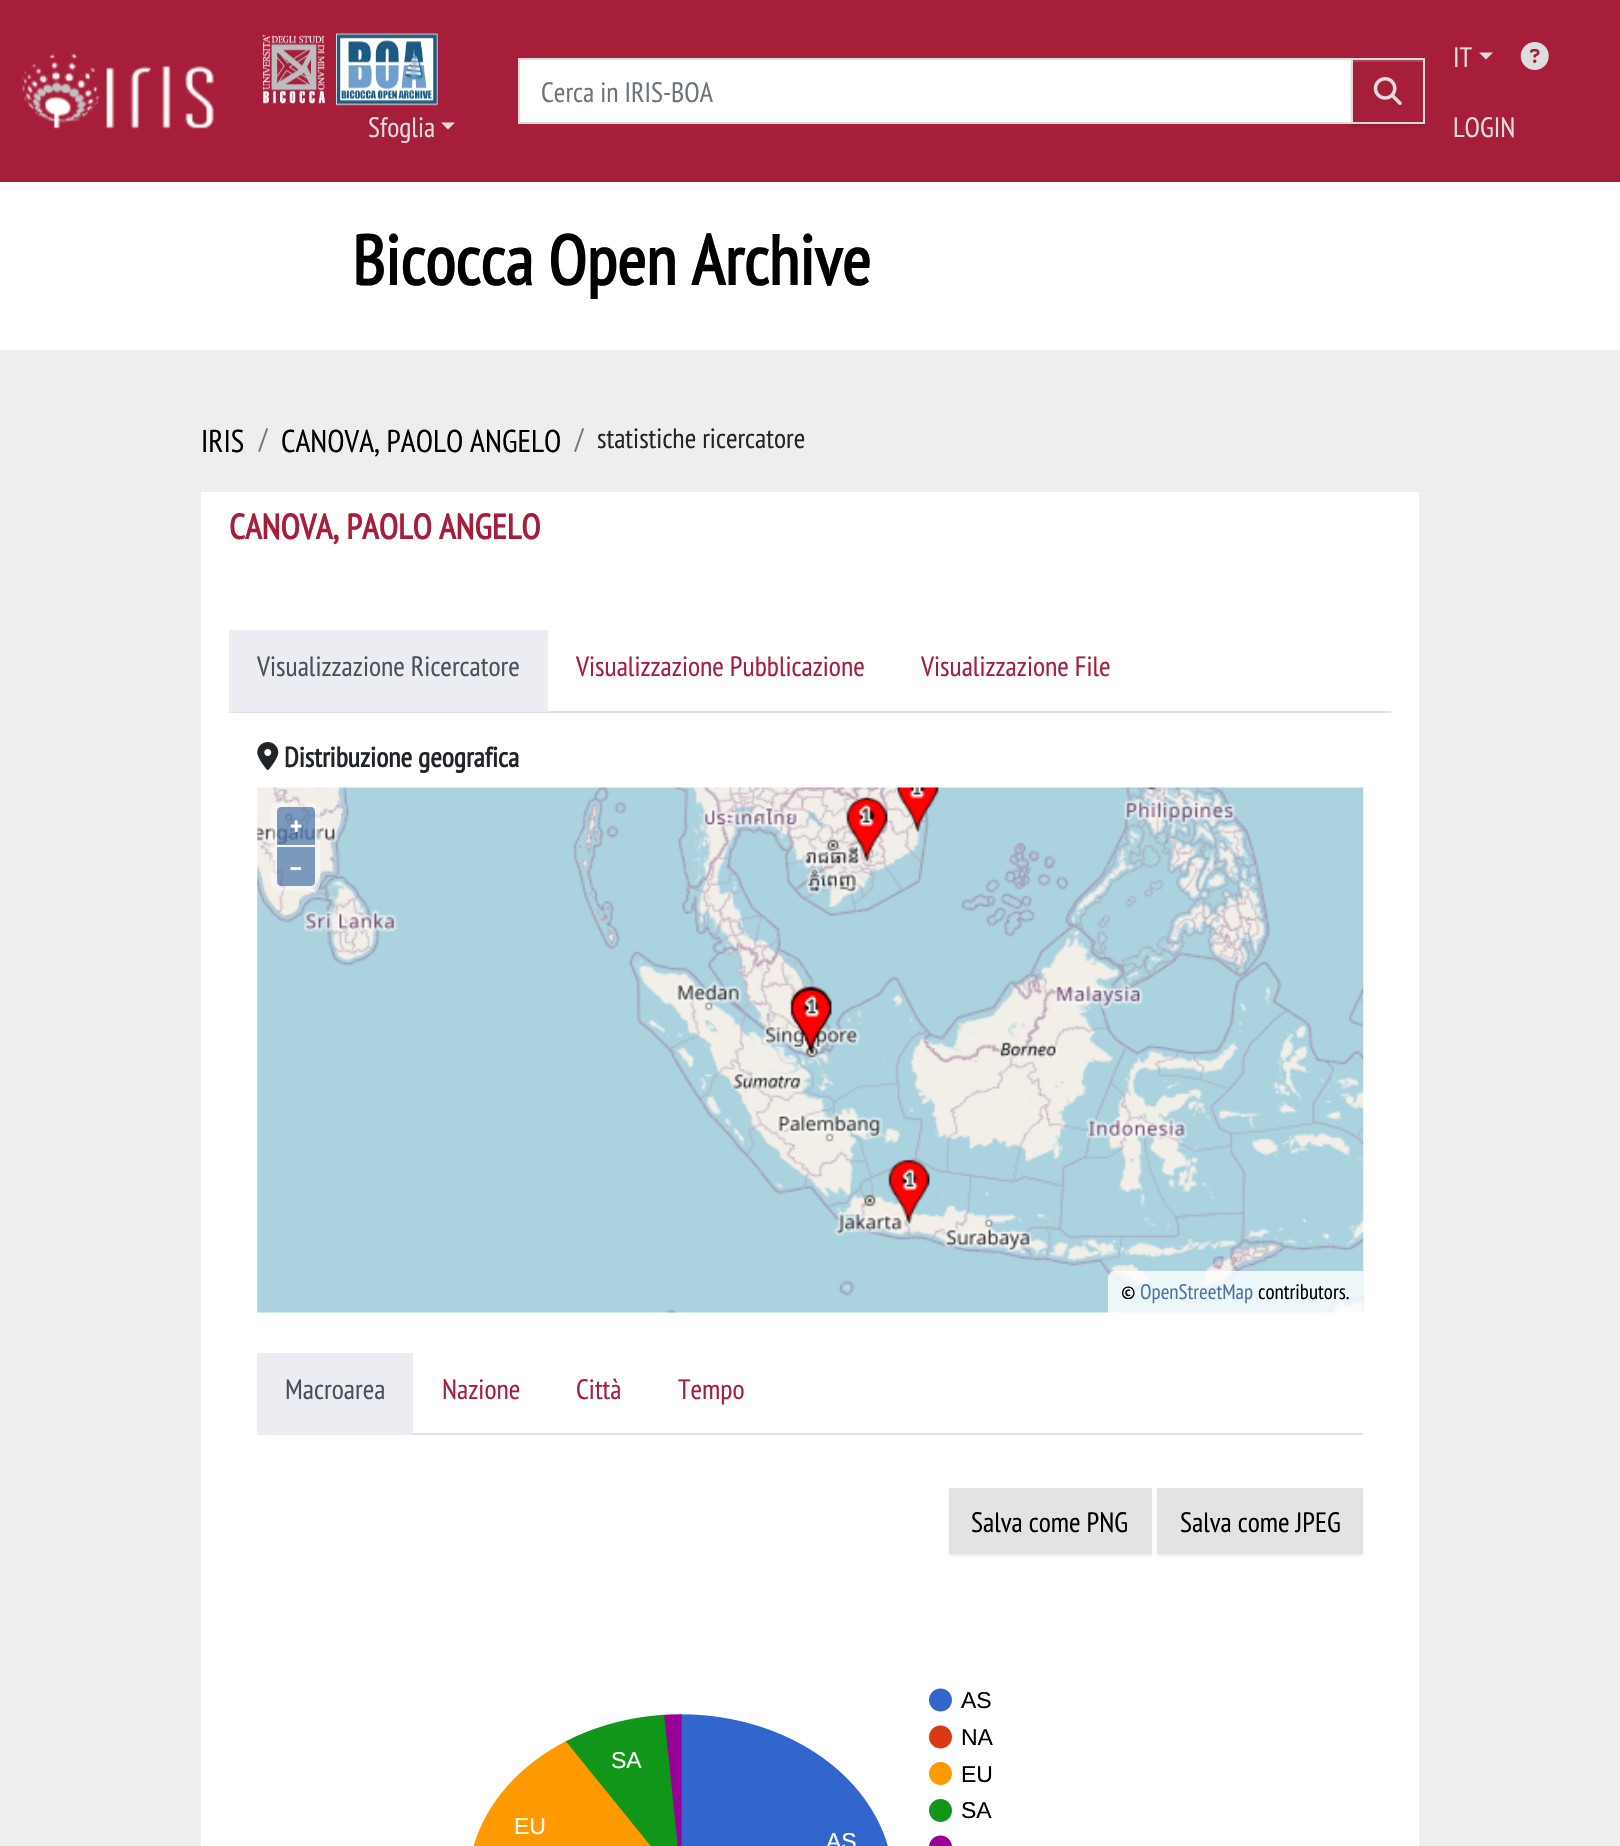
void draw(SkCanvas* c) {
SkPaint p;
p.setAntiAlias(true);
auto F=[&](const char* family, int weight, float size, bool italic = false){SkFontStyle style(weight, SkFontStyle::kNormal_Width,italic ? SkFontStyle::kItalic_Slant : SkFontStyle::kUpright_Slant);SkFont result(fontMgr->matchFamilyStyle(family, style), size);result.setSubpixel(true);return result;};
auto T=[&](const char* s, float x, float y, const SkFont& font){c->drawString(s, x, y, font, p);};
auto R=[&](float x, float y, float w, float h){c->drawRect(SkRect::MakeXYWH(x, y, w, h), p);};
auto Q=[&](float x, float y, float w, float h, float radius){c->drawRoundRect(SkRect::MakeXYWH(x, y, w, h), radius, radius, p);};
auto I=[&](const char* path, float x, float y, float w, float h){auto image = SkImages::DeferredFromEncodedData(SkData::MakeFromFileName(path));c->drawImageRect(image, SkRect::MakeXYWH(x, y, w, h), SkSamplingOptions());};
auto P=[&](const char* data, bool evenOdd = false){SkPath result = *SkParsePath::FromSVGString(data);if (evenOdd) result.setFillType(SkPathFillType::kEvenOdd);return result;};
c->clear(0xffeeeeee);
p.setColor(0xffa71e3b);
R(0,0,1620,182);
I("1.png",21,54,193,75);
I("2.png",262,33,176,73);
p.setColor(0xffffffff);
c->drawRect(SkRect::MakeXYWH(519,59,833,64),p);
p.setStroke(true);
p.setStrokeWidth(2);
p.setColor(0xffdddddd);
c->drawRect(SkRect::MakeXYWH(519,59,833,64),p);
auto f1 = F("PT Sans Narrow",400,28);
p.setStroke(false);
p.setColor(0xff6c757d);
T("Cerca in IRIS-BOA",541,102,f1);
p.setColor(0x12000000);
p.setMaskFilter(SkMaskFilter::MakeBlur(kNormal_SkBlurStyle, 1));
c->drawRect(SkRect::MakeXYWH(1351,60,74,66),p);
p.setMaskFilter(nullptr);
p.setColor(0xffa71e3b);
R(1353,62,70,60);
p.setColor(0xffb44058);
R(1353,60,70,2);
p.setStroke(true);
p.setColor(0xffdddddd);
c->drawRect(SkRect::MakeXYWH(1352,59,72,64),p);
I("3.png",1373,77,29,28);
p.setStroke(false);
T("IT",1453,67,f1);
c->drawPath(P("M1479 52.5h14l-7 7z"),p);
I("4.png",1520,42,29,28);
T("LOGIN",1453,137,f1);
T("Sfoglia",368,137,f1);
c->drawPath(P("M441 122.5h14l-7 7z"),p);
p.setColor(0xffffffff);
R(0,182,1620,168);
auto f2 = F("PT Sans Narrow",700,70);
p.setColor(0xff000000);
T("Bicocca Open Archive",352,285,f2);
auto f3 = F("PT Sans Narrow",400,31.5);
T("IRIS",201,452,f3);
p.setColor(0xff6c757d);
T("/",259,448,f1);
p.setColor(0xff000000);
T("CANOVA, PAOLO ANGELO",281,452,f3);
p.setColor(0xff6c757d);
T("/",575,448,f1);
p.setColor(0xff212529);
T("statistiche ricercatore",597,448,f1);
p.setColor(0xffffffff);
R(201,492,1218,1354);
auto f4 = F("PT Sans Narrow",700,35);
p.setColor(0xffa71e3b);
T("CANOVA, PAOLO ANGELO",229,539,f4);
p.setColor(0xffdee2e6);
R(229,711,1162,2);
p.setColor(0xffecedf2);
R(229,630,319,82);
p.setColor(0xff495057);
T("Visualizzazione Ricercatore",257,676,f1);
p.setColor(0xffa71e3b);
T("Visualizzazione Pubblicazione",576,676,f1);
T("Visualizzazione File",921,676,f1);
I("5.png",257,742,22,28);
auto f5 = F("PT Sans Narrow",700,28);
p.setColor(0xff212529);
T("Distribuzione geografica",284,767,f5);
I("6.png",257,787,1107,526);
p.setColor(0x66ffffff);
Q(271,802,49,89,7);
p.setColor(0x80003c88);
c->drawPath(P("M281 807h30c2 0 4 2 4 4v34h-38v-34c0-2 2-4 4-4z"),p);
p.setColor(0xffffffff);
T("+",290,836,f5);
p.setColor(0x80003c88);
c->drawPath(P("M277 847h38v35c0 2-2 4-4 4h-30c-2 0-4-2-4-4z"),p);
p.setColor(0xffffffff);
T("–",288,877,f5);
p.setColor(0xccffffff);
c->drawPath(P("M1115 1271h248v42h-255v-35c0-4 3-7 7-7z"),p);
auto f6 = F("PT Sans Narrow",400,21);
p.setColor(0xff000000);
T("©",1121,1299,f6);
p.setColor(0xff4874aa);
T("OpenStreetMap",1140,1299,f6);
p.setColor(0xff000000);
T("contributors.",1258,1299,f6);
p.setColor(0xffdee2e6);
R(413,1433,950,2);
p.setColor(0xffecedf2);
R(257,1353,156,82);
p.setColor(0xff495057);
T("Macroarea",285,1399,f1);
p.setColor(0xffa71e3b);
T("Nazione",442,1399,f1);
T("Città",576,1399,f1);
T("Tempo",678,1399,f1);
p.setColor(0x12000000);
p.setMaskFilter(SkMaskFilter::MakeBlur(kNormal_SkBlurStyle, 1));
c->drawRect(SkRect::MakeXYWH(949,1489,203,67),p);
p.setMaskFilter(nullptr);
p.setColor(0xffe3e3e5);
R(951,1491,199,61);
p.setColor(0xffe7e7e9);
R(950,1490,200,1);
p.setStroke(true);
p.setColor(0xffe3e3e5);
c->drawRect(SkRect::MakeXYWH(950,1489,201,64),p);
p.setStroke(false);
p.setColor(0xff000000);
T("Salva come PNG",971,1532,f1);
p.setColor(0x12000000);
p.setMaskFilter(SkMaskFilter::MakeBlur(kNormal_SkBlurStyle, 1));
c->drawRect(SkRect::MakeXYWH(1157,1489,206,67),p);
p.setMaskFilter(nullptr);
p.setColor(0xffe3e3e5);
R(1159,1491,202,61);
p.setColor(0xffe7e7e9);
R(1159,1490,203,1);
p.setStroke(true);
p.setColor(0xffe3e3e5);
c->drawRect(SkRect::MakeXYWH(1158,1489,204,64),p);
p.setStroke(false);
p.setColor(0xff000000);
T("Salva come JPEG",1180,1532,f1);
I("7.png",473,1688,479,158);
auto f7 = F("Liberation Sans",400,23);
T("AS",961,1708,f7);
T("NA",961,1745,f7);
p.setColor(0xffffffff);
T("SA",611,1768,f7);
p.setColor(0xff000000);
T("EU",961,1782,f7);
T("SA",961,1818,f7);
p.setColor(0xffffffff);
T("EU",514,1834,f7);
T("AS",826,1849,f7);
}
